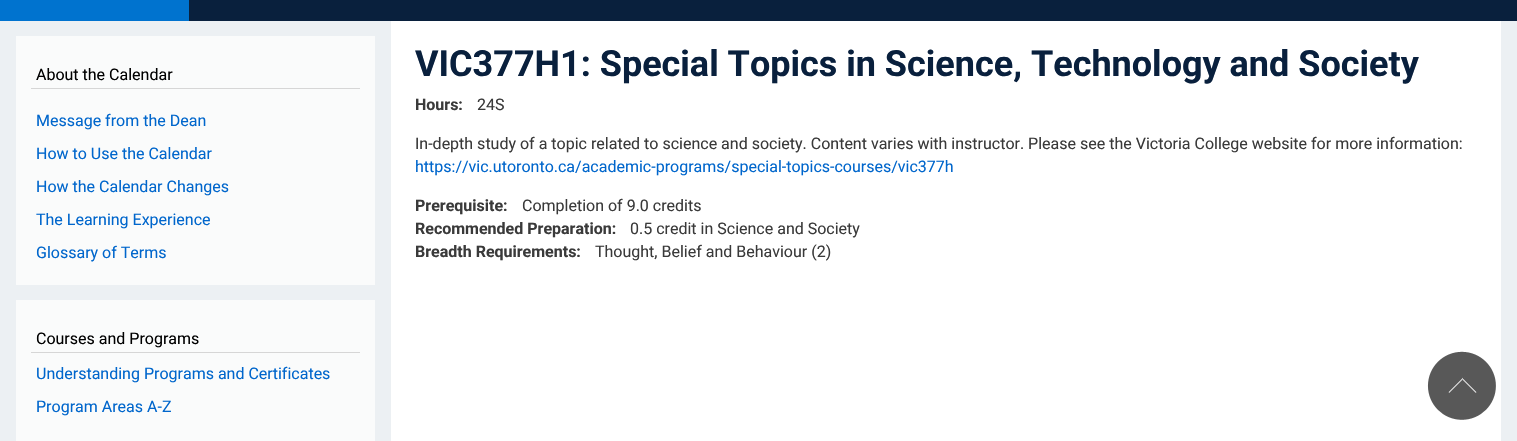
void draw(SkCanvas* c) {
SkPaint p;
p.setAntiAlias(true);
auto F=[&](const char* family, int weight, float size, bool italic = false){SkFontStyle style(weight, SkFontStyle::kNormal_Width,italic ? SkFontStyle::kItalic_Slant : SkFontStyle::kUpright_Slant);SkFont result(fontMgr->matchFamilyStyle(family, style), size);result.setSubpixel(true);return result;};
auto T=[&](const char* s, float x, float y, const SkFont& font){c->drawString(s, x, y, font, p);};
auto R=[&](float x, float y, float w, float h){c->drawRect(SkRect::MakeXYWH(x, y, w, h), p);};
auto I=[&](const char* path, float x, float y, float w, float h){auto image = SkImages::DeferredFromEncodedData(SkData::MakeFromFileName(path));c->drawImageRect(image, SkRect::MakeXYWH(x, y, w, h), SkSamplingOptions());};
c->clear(0xff09203d);
p.setColor(0xff0073cf);
R(0,0,189,21);
p.setColor(0xffecf0f3);
R(0,21,1517,420);
p.setColor(0xfffafbfb);
R(16,36,359,249);
p.setColor(0xffd6d6d6);
R(31,88,329,1);
auto f1 = F("Roboto",400,16);
p.setColor(0xff000000);
T("About the Calendar",36,80,f1);
p.setColor(0xff0066cc);
T("Message from the Dean",36,126,f1);
T("How to Use the Calendar",36,159,f1);
T("How the Calendar Changes",36,192,f1);
T("The Learning Experience",36,225,f1);
T("Glossary of Terms",36,258,f1);
p.setColor(0xfffafbfb);
R(16,300,359,141);
p.setColor(0xffd6d6d6);
R(31,352,329,1);
p.setColor(0xff000000);
T("Courses and Programs",36,344,f1);
p.setColor(0xff0066cc);
T("Understanding Programs and Certificates",36,379,f1);
T("Program Areas A-Z",36,412,f1);
p.setColor(0xffffffff);
R(391,21,1110,420);
auto f2 = F("Roboto",700,36);
p.setColor(0xff09203d);
T("VIC377H1: Special Topics in Science, Technology and Society",415,76,f2);
auto f3 = F("Roboto",700,16);
p.setColor(0xff3a3a3a);
T("Hours:",415,110,f3);
T("24S",477,110,f1);
T("In-depth study of a topic related to science and society. Content varies with instructor. Please see the Victoria College website for more information:",415,149,f1);
p.setColor(0xff0066cc);
T("https://vic.utoronto.ca/academic-programs/special-topics-courses/vic377h",415,172,f1);
p.setColor(0xff3a3a3a);
T("Prerequisite:",415,211,f3);
T("Completion of 9.0 credits",522,211,f1);
T("Recommended Preparation:",415,234,f3);
T("0.5 credit in Science and Society",630,234,f1);
T("Breadth Requirements:",415,257,f3);
T("Thought, Belief and Behaviour (2)",595,257,f1);
I("1.png",1427,351,69,69);
}
